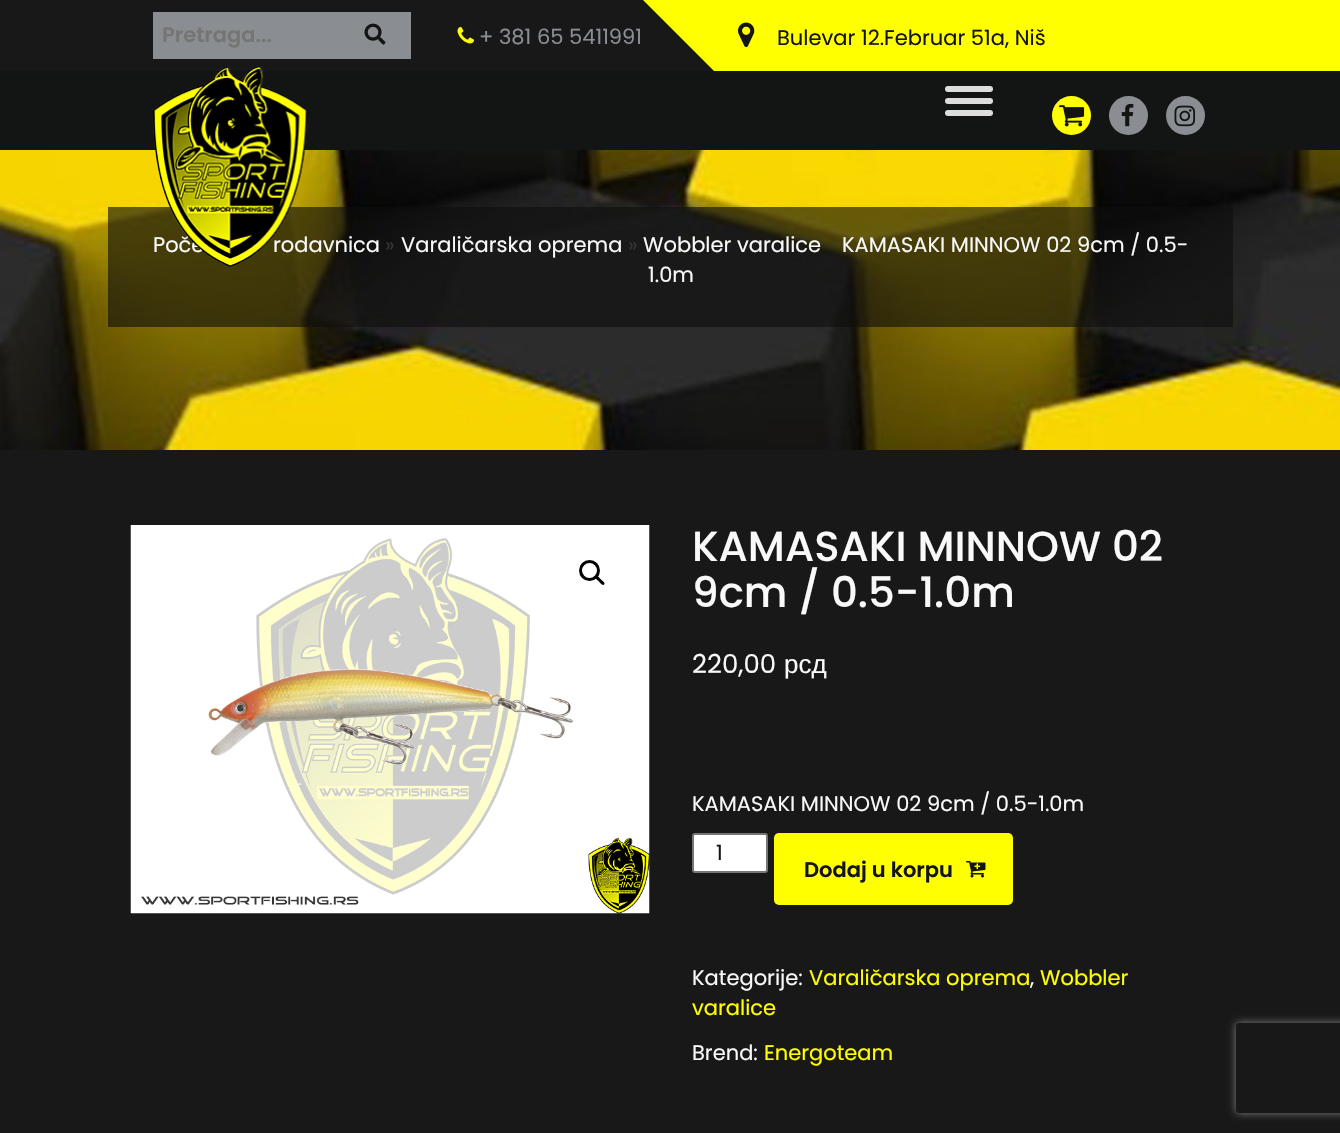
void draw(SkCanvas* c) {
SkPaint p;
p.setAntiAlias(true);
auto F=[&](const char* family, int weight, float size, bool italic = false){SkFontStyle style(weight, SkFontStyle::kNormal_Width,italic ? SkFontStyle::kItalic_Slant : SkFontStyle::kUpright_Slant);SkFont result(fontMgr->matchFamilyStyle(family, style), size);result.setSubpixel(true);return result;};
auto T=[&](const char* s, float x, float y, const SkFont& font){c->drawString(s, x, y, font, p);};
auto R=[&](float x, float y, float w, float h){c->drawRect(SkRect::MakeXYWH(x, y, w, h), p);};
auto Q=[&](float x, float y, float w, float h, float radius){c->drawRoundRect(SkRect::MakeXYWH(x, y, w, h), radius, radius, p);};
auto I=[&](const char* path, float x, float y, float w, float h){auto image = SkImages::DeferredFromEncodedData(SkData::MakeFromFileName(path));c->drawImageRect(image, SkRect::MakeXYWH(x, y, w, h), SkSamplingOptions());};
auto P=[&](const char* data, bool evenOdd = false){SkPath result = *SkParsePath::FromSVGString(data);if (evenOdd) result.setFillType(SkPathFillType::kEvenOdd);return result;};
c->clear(0xff181818);
p.setColor(0xffffff00);
R(717,0,623,71);
p.setColor(0xff8a8e93);
R(153,12,258,47);
auto f1 = F("Poppins",600,21);
p.setColor(0xff757575);
T("Pretraga...",162,42,f1);
I("1.png",364,23,22,22);
I("2.png",457,27,17,17);
auto f2 = F("Poppins",400,21);
p.setColor(0xff8a8e93);
T("+ 381 65 5411991",479,44,f2);
p.setColor(0xffffff00);
c->drawPath(P("M643 0l38-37l78 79l-37 37z"),p);
I("3.png",738,22,17,25);
p.setColor(0xff131414);
T("Bulevar 12.Februar 51a, Niš",777,45,f2);
R(0,71,1340,79);
I("8.png",0,150,1340,300);
p.setColor(0x9e0d0d0d);
R(108,207,1125,120);
p.setColor(0xfff9f9f9);
T("Poče",153,252,f2);
T("rodavnica",273,252,f2);
I("4.png",153,66,155,201);
p.setColor(0xffdddddd);
Q(945,86,48,6,3);
Q(945,98,48,6,3);
Q(945,110,48,6,3);
p.setColor(0xffffff00);
c->drawCircle(1071.5,115.5,19.5,p);
I("5.png",1059,105,26,22);
p.setColor(0xff8a8e93);
c->drawCircle(1128.5,115.5,19.5,p);
I("6.png",1121,103,13,24);
c->drawCircle(1185.5,115.5,19.5,p);
I("7.png",1174,105,22,22);
p.setColor(0xff333333);
T("»",385,252,f2);
p.setColor(0xfff9f9f9);
T("Varaličarska oprema",401,252,f2);
p.setColor(0xff333333);
T("»",628,252,f2);
p.setColor(0xfff9f9f9);
T("Wobbler varalice",643,252,f2);
T("KAMASAKI MINNOW 02 9cm / 0.5-",842,252,f2);
T("1.0m",648,282,f2);
I("9.png",130,525,520,389);
p.setStroke(true);
p.setStrokeWidth(3);
p.setColor(0xff000000);
c->drawCircle(589.5,570.5,9,p);
p.setStroke(false);
c->drawPath(P("M596 576.5c1.5-2 4 2 5 3c1 1 5 3.5 3 5c-1.5 2-4-2-5-3c-1-1-5-3.5-3-5z"),p);
auto f3 = F("Poppins",500,42);
p.setColor(0xfff9f9f9);
T("KAMASAKI MINNOW 02",692,561,f3);
T("9cm / 0.5-1.0m",692,607,f3);
auto f4 = F("Poppins",400,26);
T("220,00",692,673,f4);
auto f5 = F("Liberation Sans",400,26);
T("рсд",784,673,f5);
T("KAMASAKI MINNOW 02 9cm / 0.5-1.0m",692,811,f2);
p.setColor(0xffffffff);
c->drawRoundRect(SkRect::MakeXYWH(693,834,74,38),2,2,p);
p.setStroke(true);
p.setStrokeWidth(2);
p.setColor(0xff767676);
c->drawRoundRect(SkRect::MakeXYWH(693,834,74,38),2,2,p);
p.setStroke(false);
p.setColor(0xff131414);
T("1",716,860,f2);
p.setColor(0xffffff00);
Q(774,833,239,72,5);
p.setColor(0xff131414);
T("Dodaj u korpu",804,877,f1);
I("10.png",966,861,20,17);
p.setColor(0xfff9f9f9);
T("Kategorije:",692,985,f2);
p.setColor(0xffffff00);
T("Varaličarska oprema",809,985,f2);
p.setColor(0xfff9f9f9);
T(",",1030,985,f2);
p.setColor(0xffffff00);
T("Wobbler",1040,985,f2);
T("varalice",692,1015,f2);
p.setColor(0xfff9f9f9);
T("Brend:",692,1060,f2);
p.setColor(0xffffff00);
T("Energoteam",764,1060,f2);
c->save();
c->clipPath(P("M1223 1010h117v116h-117zm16 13h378c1.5 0 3 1.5 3 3v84c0 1.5-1.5 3-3 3h-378c-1.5 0-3-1.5-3-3v-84c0-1.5 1.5-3 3-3z",true),true);
p.setColor(0xff808080);
p.setMaskFilter(SkMaskFilter::MakeBlur(kNormal_SkBlurStyle, 4));
c->drawRoundRect(SkRect::MakeXYWH(1236,1023,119,90),3,3,p);
p.setMaskFilter(nullptr);
c->restore();
}
